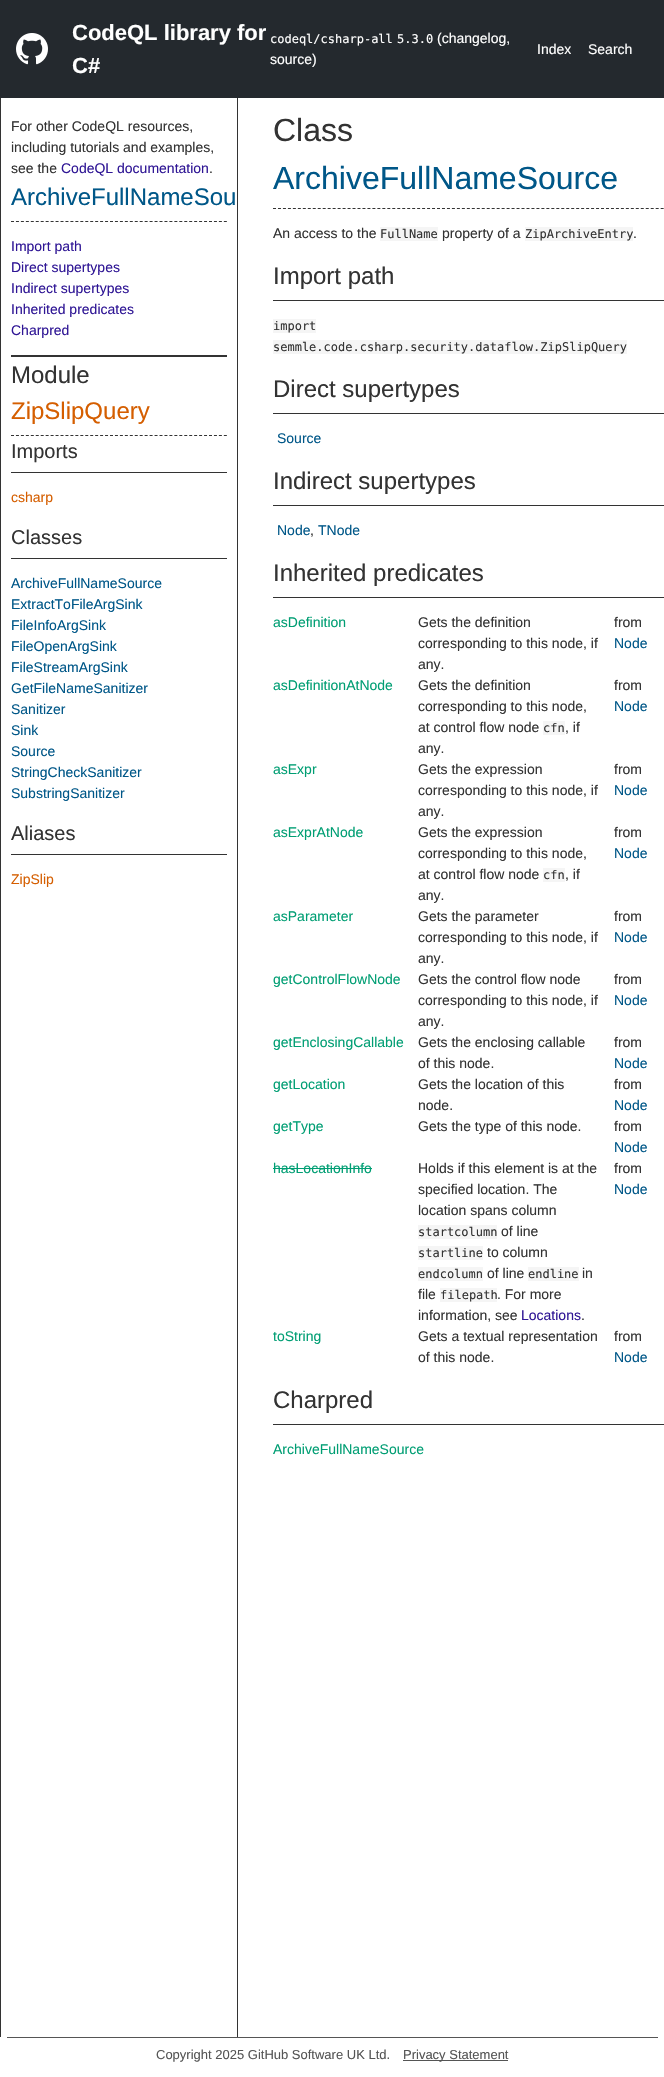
void draw(SkCanvas* c) {
SkPaint p;
p.setAntiAlias(true);
auto F=[&](const char* family, int weight, float size, bool italic = false){SkFontStyle style(weight, SkFontStyle::kNormal_Width,italic ? SkFontStyle::kItalic_Slant : SkFontStyle::kUpright_Slant);SkFont result(fontMgr->matchFamilyStyle(family, style), size);result.setSubpixel(true);return result;};
auto T=[&](const char* s, float x, float y, const SkFont& font){c->drawString(s, x, y, font, p);};
auto R=[&](float x, float y, float w, float h){c->drawRect(SkRect::MakeXYWH(x, y, w, h), p);};
auto I=[&](const char* path, float x, float y, float w, float h){auto image = SkImages::DeferredFromEncodedData(SkData::MakeFromFileName(path));c->drawImageRect(image, SkRect::MakeXYWH(x, y, w, h), SkSamplingOptions());};
auto P=[&](const char* data, bool evenOdd = false){SkPath result = *SkParsePath::FromSVGString(data);if (evenOdd) result.setFillType(SkPathFillType::kEvenOdd);return result;};
c->clear(0xffffffff);
p.setColor(0xff24292e);
R(0,0,664,98);
I("1.png",16,33,32,32);
auto f1 = F("Liberation Sans",700,22);
p.setColor(0xffffffff);
T("CodeQL library for",72,40,f1);
T("C#",72,73,f1);
auto f2 = F("DejaVu Sans Mono",400,12);
T("codeql/csharp-all",270,43,f2);
T("5.3.0",397,43,f2);
auto f3 = F("Liberation Sans",400,14);
T("(changelog,",437,43,f3);
T("source)",270,64,f3);
T("Index",537,54,f3);
T("Search",588,54,f3);
p.setColor(0xff333333);
R(237,98,1,1939);
R(0,98,1,1939);
R(11,355,216,2);
T("For other CodeQL resources,",11,131,f3);
T("including tutorials and examples,",11,152,f3);
T("see the",11,173,f3);
p.setColor(0xff2f1695);
T("CodeQL documentation",61,173,f3);
p.setColor(0xff333333);
T(".",209,173,f3);
p.setStroke(true);
p.setStrokeWidth(1);
p.setPathEffect(SkDashPathEffect::Make({{3,1.95f}}, 0));
c->drawPath(P("M11 221.5h216"),p);
p.setPathEffect(nullptr);
auto f4 = F("Liberation Sans",400,24);
p.setStroke(false);
p.setColor(0xff005788);
T("ArchiveFullNameSou",11,205,f4);
p.setColor(0xff2f1695);
T("Import path",11,251,f3);
T("Direct supertypes",11,272,f3);
T("Indirect supertypes",11,293,f3);
T("Inherited predicates",11,314,f3);
T("Charpred",11,335,f3);
p.setStroke(true);
p.setColor(0xff333333);
p.setPathEffect(SkDashPathEffect::Make({{3,1.95f}}, 0));
c->drawPath(P("M11 435.5h216"),p);
p.setPathEffect(nullptr);
p.setStroke(false);
T("Module",11,383,f4);
p.setColor(0xffd55e00);
T("ZipSlipQuery",11,419,f4);
p.setColor(0xff333333);
R(11,472,216,1);
auto f5 = F("Liberation Sans",400,20);
T("Imports",11,458,f5);
p.setColor(0xffd55e00);
T("csharp",11,502,f3);
p.setColor(0xff333333);
R(11,558,216,1);
T("Classes",11,544,f5);
p.setColor(0xff005788);
T("ArchiveFullNameSource",11,588,f3);
T("ExtractToFileArgSink",11,609,f3);
T("FileInfoArgSink",11,630,f3);
T("FileOpenArgSink",11,651,f3);
T("FileStreamArgSink",11,672,f3);
T("GetFileNameSanitizer",11,693,f3);
T("Sanitizer",11,714,f3);
T("Sink",11,735,f3);
T("Source",11,756,f3);
T("StringCheckSanitizer",11,777,f3);
T("SubstringSanitizer",11,798,f3);
p.setColor(0xff333333);
R(11,854,216,1);
T("Aliases",11,840,f5);
p.setColor(0xffd55e00);
T("ZipSlip",11,884,f3);
p.setStroke(true);
p.setColor(0xff333333);
p.setPathEffect(SkDashPathEffect::Make({{3,1.97f}}, 0));
c->drawPath(P("M273 208.5h391"),p);
p.setPathEffect(nullptr);
auto f6 = F("Liberation Sans",400,32);
p.setStroke(false);
T("Class",273,141,f6);
p.setColor(0xff005788);
T("ArchiveFullNameSource",273,189,f6);
p.setColor(0xff333333);
T("An access to the",273,238,f3);
p.setColor(0xfff5f5f5);
R(380,227,58,14);
p.setColor(0xff333333);
T("FullName",380,238,f2);
T("property of a",442,238,f3);
p.setColor(0xfff5f5f5);
R(525,227,108,14);
p.setColor(0xff333333);
T("ZipArchiveEntry",525,238,f2);
T(".",633,238,f3);
R(273,300,391,1);
T("Import path",273,284,f4);
p.setColor(0xfff5f5f5);
R(273,319,43,14);
p.setColor(0xff333333);
T("import",273,330,f2);
p.setColor(0xfff5f5f5);
R(273,340,354,14);
p.setColor(0xff333333);
T("semmle.code.csharp.security.dataflow.ZipSlipQuery",273,351,f2);
R(273,413,391,1);
T("Direct supertypes",273,397,f4);
p.setColor(0xff005788);
T("Source",277,443,f3);
p.setColor(0xff333333);
R(273,505,391,1);
T("Indirect supertypes",273,489,f4);
p.setColor(0xff005788);
T("Node",277,535,f3);
p.setColor(0xff333333);
T(",",310,535,f3);
p.setColor(0xff005788);
T("TNode",318,535,f3);
p.setColor(0xff333333);
R(273,597,391,1);
T("Inherited predicates",273,581,f4);
p.setColor(0xff009e73);
T("asDefinition",273,627,f3);
p.setColor(0xff333333);
T("Gets the definition",418,627,f3);
T("corresponding to this node, if",418,648,f3);
T("any.",418,669,f3);
T("from",614,627,f3);
p.setColor(0xff005788);
T("Node",614,648,f3);
p.setColor(0xff009e73);
T("asDefinitionAtNode",273,690,f3);
p.setColor(0xff333333);
T("Gets the definition",418,690,f3);
T("corresponding to this node,",418,711,f3);
T("at control flow node",418,732,f3);
p.setColor(0xfff5f5f5);
R(543,721,22,14);
p.setColor(0xff333333);
T("cfn",543,732,f2);
T(", if",565,732,f3);
T("any.",418,753,f3);
T("from",614,690,f3);
p.setColor(0xff005788);
T("Node",614,711,f3);
p.setColor(0xff009e73);
T("asExpr",273,774,f3);
p.setColor(0xff333333);
T("Gets the expression",418,774,f3);
T("corresponding to this node, if",418,795,f3);
T("any.",418,816,f3);
T("from",614,774,f3);
p.setColor(0xff005788);
T("Node",614,795,f3);
p.setColor(0xff009e73);
T("asExprAtNode",273,837,f3);
p.setColor(0xff333333);
T("Gets the expression",418,837,f3);
T("corresponding to this node,",418,858,f3);
T("at control flow node",418,879,f3);
p.setColor(0xfff5f5f5);
R(543,868,22,14);
p.setColor(0xff333333);
T("cfn",543,879,f2);
T(", if",565,879,f3);
T("any.",418,900,f3);
T("from",614,837,f3);
p.setColor(0xff005788);
T("Node",614,858,f3);
p.setColor(0xff009e73);
T("asParameter",273,921,f3);
p.setColor(0xff333333);
T("Gets the parameter",418,921,f3);
T("corresponding to this node, if",418,942,f3);
T("any.",418,963,f3);
T("from",614,921,f3);
p.setColor(0xff005788);
T("Node",614,942,f3);
p.setColor(0xff009e73);
T("getControlFlowNode",273,984,f3);
p.setColor(0xff333333);
T("Gets the control flow node",418,984,f3);
T("corresponding to this node, if",418,1005,f3);
T("any.",418,1026,f3);
T("from",614,984,f3);
p.setColor(0xff005788);
T("Node",614,1005,f3);
p.setColor(0xff009e73);
T("getEnclosingCallable",273,1047,f3);
p.setColor(0xff333333);
T("Gets the enclosing callable",418,1047,f3);
T("of this node.",418,1068,f3);
T("from",614,1047,f3);
p.setColor(0xff005788);
T("Node",614,1068,f3);
p.setColor(0xff009e73);
T("getLocation",273,1089,f3);
p.setColor(0xff333333);
T("Gets the location of this",418,1089,f3);
T("node.",418,1110,f3);
T("from",614,1089,f3);
p.setColor(0xff005788);
T("Node",614,1110,f3);
p.setColor(0xff009e73);
T("getType",273,1131,f3);
p.setColor(0xff333333);
T("Gets the type of this node.",418,1131,f3);
T("from",614,1131,f3);
p.setColor(0xff005788);
T("Node",614,1152,f3);
p.setColor(0xff009e73);
T("hasLocationInfo",273,1173,f3);
R(273,1168,99,1);
p.setColor(0xff333333);
T("Holds if this element is at the",418,1173,f3);
T("specified location. The",418,1194,f3);
T("location spans column",418,1215,f3);
p.setColor(0xfff5f5f5);
R(418,1225,79,14);
p.setColor(0xff333333);
T("startcolumn",418,1236,f2);
T("of line",501,1236,f3);
p.setColor(0xfff5f5f5);
R(418,1246,65,14);
p.setColor(0xff333333);
T("startline",418,1257,f2);
T("to column",487,1257,f3);
p.setColor(0xfff5f5f5);
R(418,1267,65,14);
p.setColor(0xff333333);
T("endcolumn",418,1278,f2);
T("of line",487,1278,f3);
p.setColor(0xfff5f5f5);
R(528,1267,51,14);
p.setColor(0xff333333);
T("endline",528,1278,f2);
T("in",582,1278,f3);
T("file",418,1299,f3);
p.setColor(0xfff5f5f5);
R(440,1288,57,14);
p.setColor(0xff333333);
T("filepath",440,1299,f2);
T(". For more",497,1299,f3);
T("information, see",418,1320,f3);
p.setColor(0xff2f1695);
T("Locations",521,1320,f3);
p.setColor(0xff333333);
T(".",581,1320,f3);
T("from",614,1173,f3);
p.setColor(0xff005788);
T("Node",614,1194,f3);
p.setColor(0xff009e73);
T("toString",273,1341,f3);
p.setColor(0xff333333);
T("Gets a textual representation",418,1341,f3);
T("of this node.",418,1362,f3);
T("from",614,1341,f3);
p.setColor(0xff005788);
T("Node",614,1362,f3);
p.setColor(0xff333333);
R(273,1424,391,1);
T("Charpred",273,1408,f4);
p.setColor(0xff009e73);
T("ArchiveFullNameSource",273,1454,f3);
p.setColor(0xff555555);
R(7,2037,651,1);
auto f7 = F("Liberation Sans",400,13);
T("Copyright 2025 GitHub Software UK Ltd.",156,2059,f7);
R(403,2060,105,1);
T("Privacy Statement",403,2059,f7);
}
